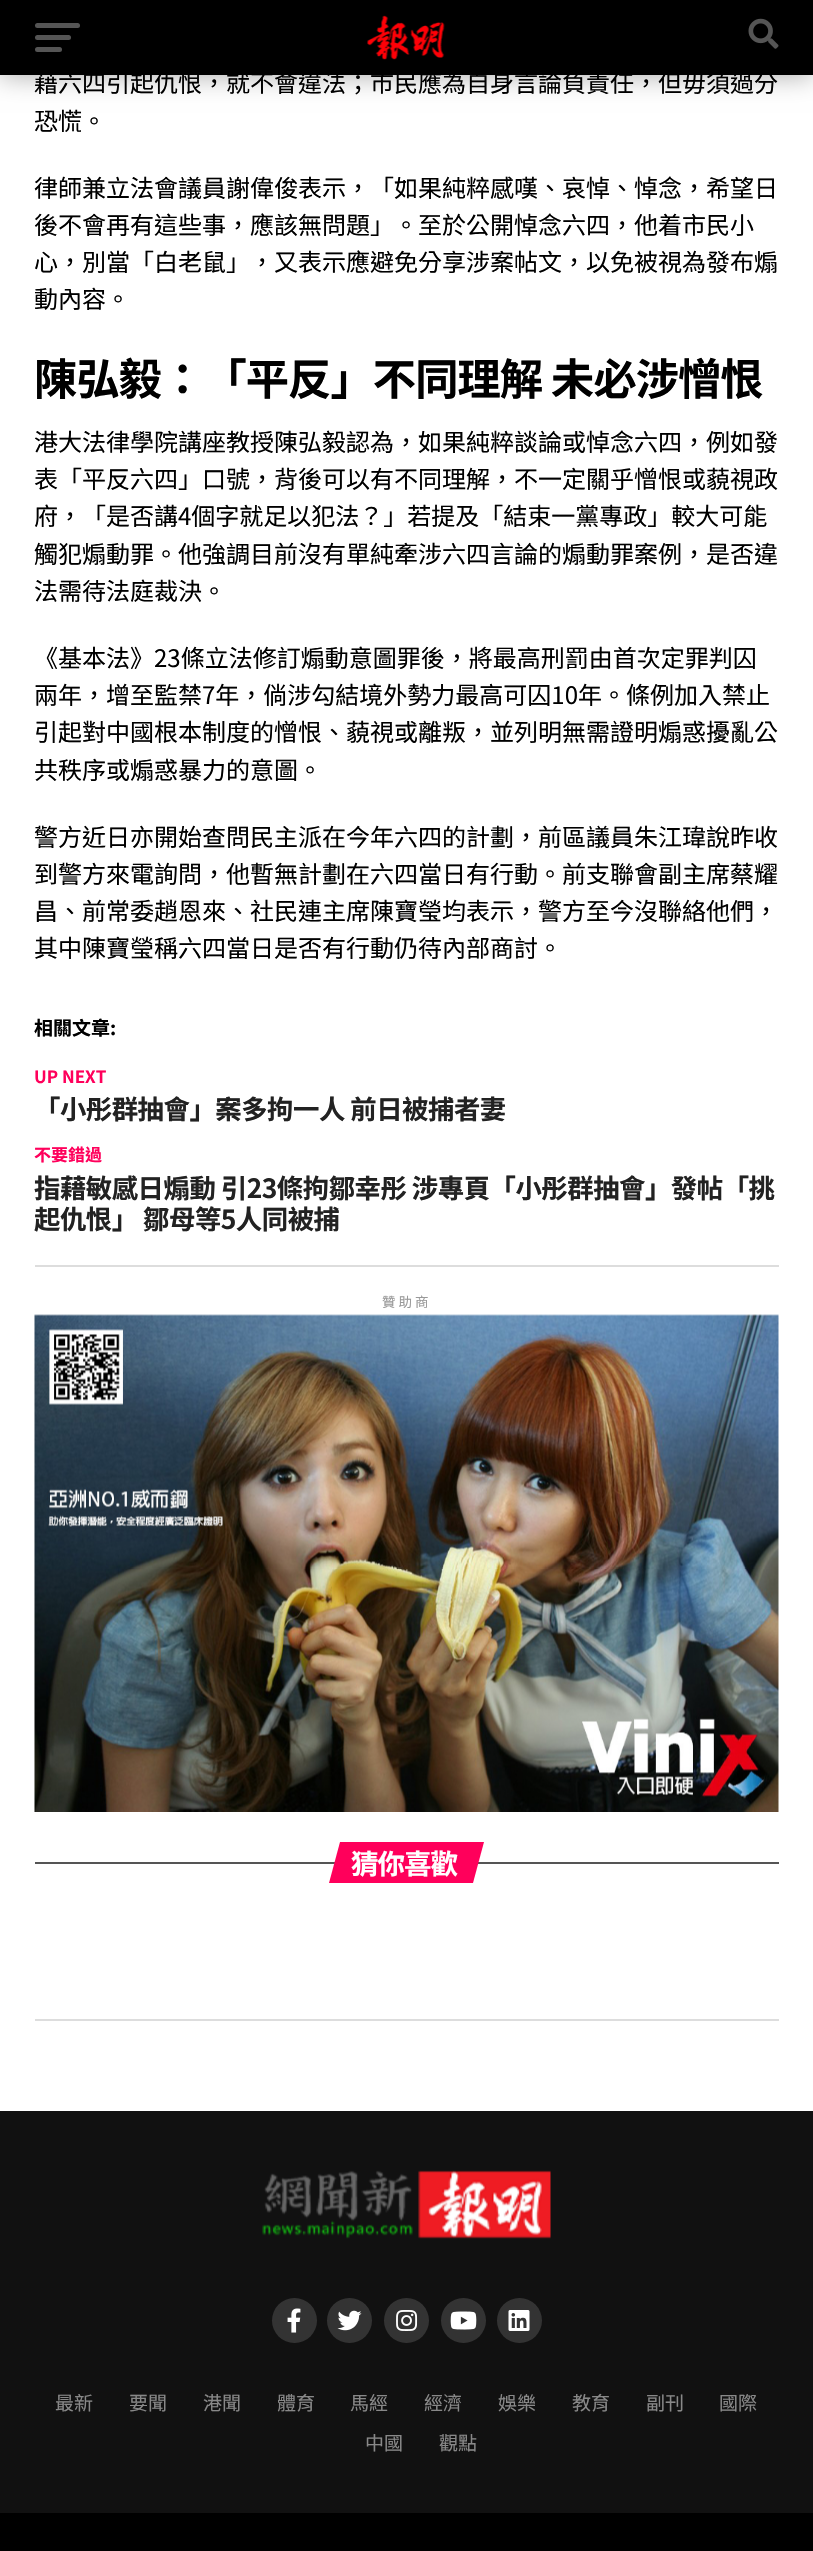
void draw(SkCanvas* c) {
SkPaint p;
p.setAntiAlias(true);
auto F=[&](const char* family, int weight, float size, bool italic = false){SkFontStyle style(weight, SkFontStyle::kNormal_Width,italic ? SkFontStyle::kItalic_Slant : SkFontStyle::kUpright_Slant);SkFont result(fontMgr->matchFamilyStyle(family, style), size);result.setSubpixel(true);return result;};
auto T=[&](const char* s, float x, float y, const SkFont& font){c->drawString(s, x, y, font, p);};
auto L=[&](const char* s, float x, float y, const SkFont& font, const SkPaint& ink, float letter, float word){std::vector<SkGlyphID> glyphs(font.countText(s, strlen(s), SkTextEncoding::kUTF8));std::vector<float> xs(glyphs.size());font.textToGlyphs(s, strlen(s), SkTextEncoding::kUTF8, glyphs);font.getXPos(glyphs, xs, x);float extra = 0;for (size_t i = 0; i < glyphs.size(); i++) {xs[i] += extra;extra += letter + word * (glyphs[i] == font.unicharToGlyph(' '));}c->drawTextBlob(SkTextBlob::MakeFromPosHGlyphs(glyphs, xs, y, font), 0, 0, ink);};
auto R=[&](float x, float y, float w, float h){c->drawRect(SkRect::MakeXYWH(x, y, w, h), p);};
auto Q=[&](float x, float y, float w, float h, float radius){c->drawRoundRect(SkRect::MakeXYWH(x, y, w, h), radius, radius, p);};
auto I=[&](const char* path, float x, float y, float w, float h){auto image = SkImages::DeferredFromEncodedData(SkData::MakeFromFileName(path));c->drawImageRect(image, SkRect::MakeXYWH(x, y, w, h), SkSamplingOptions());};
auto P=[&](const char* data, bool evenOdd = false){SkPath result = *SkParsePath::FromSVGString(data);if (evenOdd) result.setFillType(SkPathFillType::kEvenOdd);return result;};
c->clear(0xffffffff);
p.setColor(0x4d000000);
p.setMaskFilter(SkMaskFilter::MakeBlur(kNormal_SkBlurStyle, 12));
c->drawRect(SkRect::MakeXYWH(0,2,813,75),p);
p.setMaskFilter(nullptr);
p.setColor(0xff000000);
R(0,0,813,75);
p.setColor(0xff555555);
Q(35,23,45,5,2.5);
Q(35,35,36,5,2.5);
Q(35,47,27,5,2.5);
I("1.png",367,15,78,45);
I("2.png",748,18,31,31);
p.setColor(0xffdddddd);
R(35,2019,744,2);
auto f1 = F("Noto Sans TC",400,24);
p.setColor(0xff000000);
T("藉六四引起仇恨，就不會違法；市民應為自身言論負責任，但毋須過分",34,92,f1);
T("恐慌。",34,130,f1);
T("律師兼立法會議員謝偉俊表示，「如果純粹感嘆、哀悼、悼念，希望日",34,197,f1);
T("後不會再有這些事，應該無問題」。至於公開悼念六四，他着市民小",34,234,f1);
T("心，別當「白老鼠」，又表示應避免分享涉案帖文，以免被視為發布煽",34,271,f1);
T("動內容。",34,308,f1);
auto f2 = F("Noto Sans TC",700,43.25);
L("陳弘毅：「平反」不同理解 未必涉憎恨",34,395,f2,p,-.9,0);
T("港大法律學院講座教授陳弘毅認為，如果純粹談論或悼念六四，例如發",34,451,f1);
T("表「平反六四」口號，背後可以有不同理解，不一定關乎憎恨或藐視政",34,488,f1);
T("府，「是否講4個字就足以犯法？」若提及「結束一黨專政」較大可能",34,525,f1);
T("觸犯煽動罪。他強調目前沒有單純牽涉六四言論的煽動罪案例，是否違",34,563,f1);
T("法需待法庭裁決。",34,600,f1);
T("《基本法》23條立法修訂煽動意圖罪後，將最高刑罰由首次定罪判囚",34,667,f1);
T("兩年，增至監禁7年，倘涉勾結境外勢力最高可囚10年。條例加入禁止",34,704,f1);
T("引起對中國根本制度的憎恨、藐視或離叛，並列明無需證明煽惑擾亂公",34,741,f1);
T("共秩序或煽惑暴力的意圖。",34,779,f1);
T("警方近日亦開始查問民主派在今年六四的計劃，前區議員朱江瑋說昨收",34,846,f1);
T("到警方來電詢問，他暫無計劃在六四當日有行動。前支聯會副主席蔡耀",34,883,f1);
T("昌、前常委趙恩來、社民連主席陳寶瑩均表示，警方至今沒聯絡他們，",34,920,f1);
T("其中陳寶瑩稱六四當日是否有行動仍待內部商討。",34,957,f1);
auto f3 = F("Noto Sans TC",700,19);
T("相關文章:",34,1035,f3);
p.setColor(0xffdddddd);
R(35,1265,744,2);
auto f4 = F("Noto Sans TC",700,17);
p.setColor(0xffff005b);
T("UP NEXT",34,1083,f4);
auto f5 = F("Noto Sans TC",700,26.4);
p.setColor(0xff222222);
L("「小彤群抽會」案多拘一人 前日被捕者妻",34,1119,f5,p,-.5,0);
p.setColor(0xffff005b);
T("不要錯過",34,1161,f4);
p.setColor(0xff222222);
L("指藉敏感日煽動 引23條拘鄒幸彤 涉專頁「小彤群抽會」發帖「挑",34,1198,f5,p,-.5,0);
L("起仇恨」 鄒母等5人同被捕",34,1229,f5,p,-.5,0);
auto f6 = F("Noto Sans TC",400,13.5);
p.setColor(0xff999999);
L("贊助商",382,1307,f6,p,3,0);
I("3.png",34,1314,745,498);
p.setColor(0xff555555);
R(35,1862,744,2);
p.setColor(0xffff005b);
c->drawPath(P("M340 1842h144l-11 41h-144z"),p);
auto f7 = F("Noto Sans TC",700,27.5);
p.setColor(0xffffffff);
L("猜你喜歡",351,1874,f7,p,-1,0);
p.setColor(0xff111111);
R(0,2111,813,402);
I("4.png",262,2170,289,69);
p.setColor(0xff333333);
c->drawCircle(294.5,2320.5,22.5,p);
I("5.png",287,2308,14,25);
c->drawCircle(349.5,2320.5,22.5,p);
I("6.png",337,2310,25,21);
c->drawCircle(406.5,2320.5,22.5,p);
I("7.png",396,2310,22,21);
c->drawCircle(463.5,2320.5,22.5,p);
I("8.png",450,2311,27,19);
c->drawCircle(519.5,2320.5,22.5,p);
I("9.png",508,2310,22,21);
auto f8 = F("Noto Sans TC",400,19);
p.setColor(0xff888888);
T("最新",55,2410,f8);
T("要聞",129,2410,f8);
T("港聞",203,2410,f8);
T("體育",277,2410,f8);
T("馬經",350,2410,f8);
T("經濟",424,2410,f8);
T("娛樂",498,2410,f8);
T("教育",572,2410,f8);
T("副刊",646,2410,f8);
T("國際",719,2410,f8);
T("中國",365,2450,f8);
T("觀點",439,2450,f8);
p.setColor(0xff000000);
R(0,2513,813,38);
}
